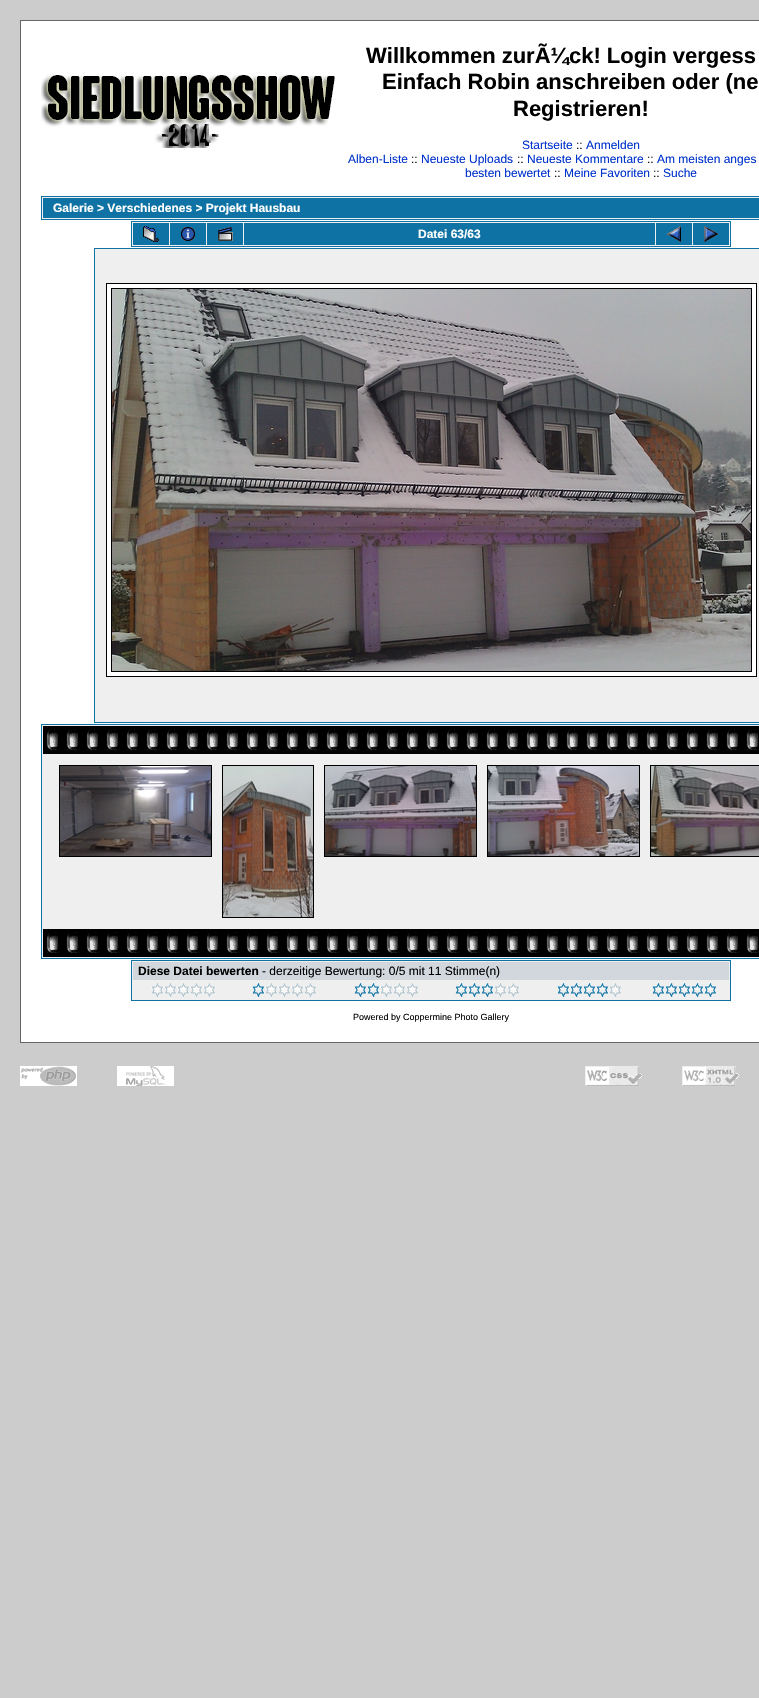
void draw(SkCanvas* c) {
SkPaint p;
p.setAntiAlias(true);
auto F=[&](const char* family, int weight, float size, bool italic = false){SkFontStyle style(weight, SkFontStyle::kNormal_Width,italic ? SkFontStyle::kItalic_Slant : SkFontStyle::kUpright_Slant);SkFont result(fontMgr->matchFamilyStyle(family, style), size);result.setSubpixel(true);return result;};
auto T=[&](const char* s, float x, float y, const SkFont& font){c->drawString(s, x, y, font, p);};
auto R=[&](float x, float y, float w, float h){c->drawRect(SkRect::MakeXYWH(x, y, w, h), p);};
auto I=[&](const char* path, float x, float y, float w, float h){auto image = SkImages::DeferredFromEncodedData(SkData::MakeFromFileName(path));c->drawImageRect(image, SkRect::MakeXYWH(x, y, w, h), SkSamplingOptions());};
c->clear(0xffcccccc);
p.setColor(0xffffffff);
c->drawRect(SkRect::MakeXYWH(20.5,20.5,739,1022),p);
p.setStroke(true);
p.setStrokeWidth(1);
p.setColor(0xff666666);
c->drawRect(SkRect::MakeXYWH(20.5,20.5,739,1022),p);
I("1.png",41,74,294,74);
auto f1 = F("Liberation Sans",700,22);
p.setStroke(false);
p.setColor(0xff000000);
T("Willkommen zurÃ¼ck! Login vergess",366,63,f1);
T("Einfach Robin anschreiben oder (ne",382,89,f1);
T("Registrieren!",513,116,f1);
auto f2 = F("Liberation Sans",400,12);
p.setColor(0xff0033cc);
T("Startseite",522,149,f2);
p.setColor(0xff000000);
T("::",576,149,f2);
p.setColor(0xff0033cc);
T("Anmelden",586,149,f2);
T("Alben-Liste",348,163,f2);
p.setColor(0xff000000);
T("::",411,163,f2);
p.setColor(0xff0033cc);
T("Neueste Uploads",421,163,f2);
p.setColor(0xff000000);
T("::",517,163,f2);
p.setColor(0xff0033cc);
T("Neueste Kommentare",527,163,f2);
p.setColor(0xff000000);
T("::",647,163,f2);
p.setColor(0xff0033cc);
T("Am meisten anges",657,163,f2);
T("besten bewertet",465,177,f2);
p.setColor(0xff000000);
T("::",554,177,f2);
p.setColor(0xff0033cc);
T("Meine Favoriten",564,177,f2);
p.setColor(0xff000000);
T("::",653,177,f2);
p.setColor(0xff0033cc);
T("Suche",663,177,f2);
p.setColor(0xffefefef);
c->drawRect(SkRect::MakeXYWH(41.5,196.5,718,23),p);
p.setStroke(true);
p.setColor(0xff0e72a4);
c->drawRect(SkRect::MakeXYWH(41.5,196.5,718,23),p);
p.setStroke(false);
R(43,198,716,20);
auto f3 = F("Liberation Sans",700,12);
p.setColor(0xffffffff);
T("Galerie > Verschiedenes > Projekt Hausbau",53,212,f3);
p.setColor(0xffefefef);
c->drawRect(SkRect::MakeXYWH(131.5,221.5,599,25),p);
p.setStroke(true);
p.setColor(0xff0e72a4);
c->drawRect(SkRect::MakeXYWH(131.5,221.5,599,25),p);
p.setStroke(false);
R(133,223,36,22);
I("2.png",143,226,16,16);
R(170,223,36,22);
I("3.png",181,227,14,14);
R(207,223,36,22);
I("4.png",218,227,15,14);
R(244,223,411,22);
p.setColor(0xffffffff);
T("Datei 63/63",418,238,f3);
p.setColor(0xff0e72a4);
R(656,223,36,22);
I("5.png",667,226,14,16);
R(693,223,36,22);
I("6.png",704,226,14,16);
p.setColor(0xffefefef);
c->drawRect(SkRect::MakeXYWH(94.5,248.5,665,474),p);
p.setStroke(true);
p.setColor(0xff0e72a4);
c->drawRect(SkRect::MakeXYWH(94.5,248.5,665,474),p);
p.setStroke(false);
p.setColor(0xffffffff);
c->drawRect(SkRect::MakeXYWH(106.5,283.5,650,393),p);
p.setStroke(true);
p.setColor(0xff000000);
c->drawRect(SkRect::MakeXYWH(106.5,283.5,650,393),p);
c->drawRect(SkRect::MakeXYWH(111.5,288.5,640,383),p);
I("7.png",112,289,639,382);
p.setStroke(false);
p.setColor(0xffefefef);
c->drawRect(SkRect::MakeXYWH(41.5,724.5,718,234),p);
p.setStroke(true);
p.setColor(0xff0e72a4);
c->drawRect(SkRect::MakeXYWH(41.5,724.5,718,234),p);
I("8.png",43,726,716,28);
p.setColor(0xff000000);
c->drawRect(SkRect::MakeXYWH(59.5,765.5,152,91),p);
I("9.png",60,766,151,90);
c->drawRect(SkRect::MakeXYWH(222.5,765.5,91,152),p);
I("10.png",223,766,90,151);
c->drawRect(SkRect::MakeXYWH(324.5,765.5,152,91),p);
I("11.png",325,766,151,90);
c->drawRect(SkRect::MakeXYWH(487.5,765.5,152,91),p);
I("12.png",488,766,151,90);
c->drawRect(SkRect::MakeXYWH(650.5,765.5,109,91),p);
I("13.png",651,766,108,90);
I("8.png",43,929,716,28);
p.setStroke(false);
p.setColor(0xffefefef);
c->drawRect(SkRect::MakeXYWH(131.5,960.5,599,40),p);
p.setStroke(true);
p.setColor(0xff0e72a4);
c->drawRect(SkRect::MakeXYWH(131.5,960.5,599,40),p);
p.setStroke(false);
p.setColor(0xffd1d7dc);
R(133,962,596,18);
p.setColor(0xff000000);
T("Diese Datei bewerten",138,975,f3);
T("- derzeitige Bewertung: 0/5 mit 11 Stimme(n)",262,975,f2);
I("14.png",151,983,65,14);
I("15.png",252,983,65,14);
I("16.png",354,983,65,14);
I("17.png",455,983,65,14);
I("18.png",557,983,65,14);
I("19.png",652,983,65,14);
auto f4 = F("Liberation Sans",400,9);
T("Powered by Coppermine Photo Gallery",353,1020,f4);
I("20.png",20,1066,57,20);
I("21.png",117,1066,57,20);
I("22.png",585,1066,57,20);
I("23.png",682,1066,57,20);
}
